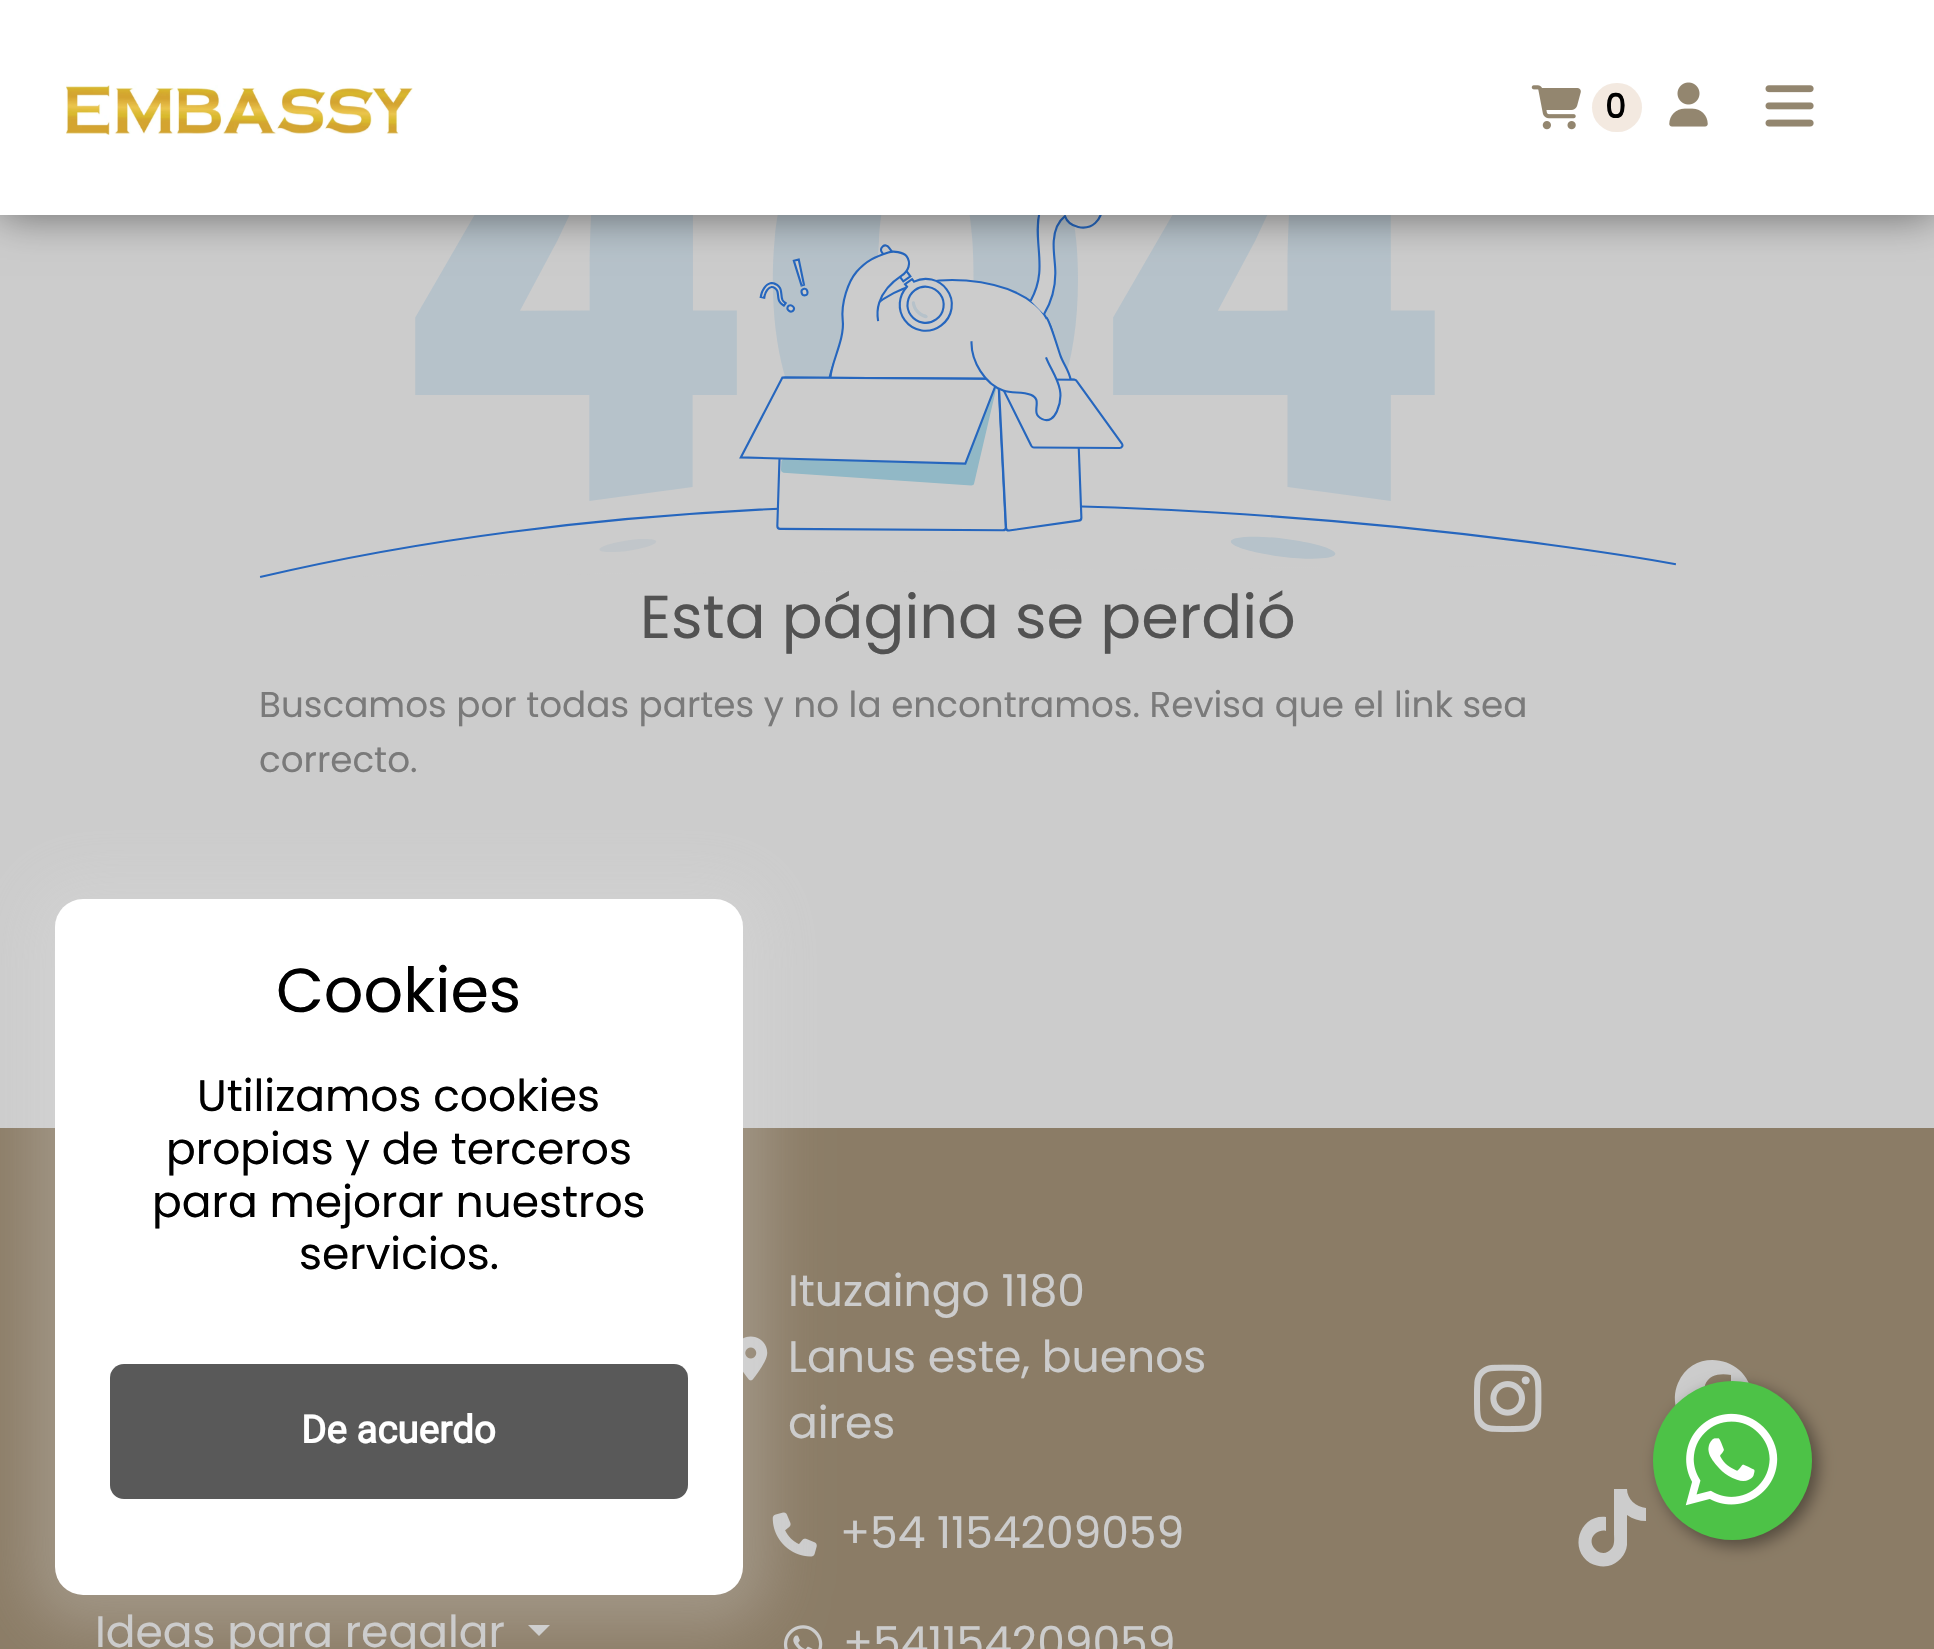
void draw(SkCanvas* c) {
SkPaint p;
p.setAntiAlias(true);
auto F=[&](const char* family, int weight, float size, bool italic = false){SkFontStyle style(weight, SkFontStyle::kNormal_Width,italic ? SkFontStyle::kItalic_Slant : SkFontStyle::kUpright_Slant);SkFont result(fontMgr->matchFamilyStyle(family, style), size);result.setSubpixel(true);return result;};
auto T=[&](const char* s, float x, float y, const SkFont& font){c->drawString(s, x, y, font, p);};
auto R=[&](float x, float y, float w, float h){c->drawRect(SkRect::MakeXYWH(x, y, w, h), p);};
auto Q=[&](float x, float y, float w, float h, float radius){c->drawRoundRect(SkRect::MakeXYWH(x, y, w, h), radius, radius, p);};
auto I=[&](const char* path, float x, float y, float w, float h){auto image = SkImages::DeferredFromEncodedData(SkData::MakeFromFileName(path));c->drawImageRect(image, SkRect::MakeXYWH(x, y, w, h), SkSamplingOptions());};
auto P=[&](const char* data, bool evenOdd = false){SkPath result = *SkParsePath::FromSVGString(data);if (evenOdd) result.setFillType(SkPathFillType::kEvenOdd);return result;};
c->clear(0xffcccccc);
I("5.png",259,215,1417,363);
p.setColor(0x80000000);
p.setMaskFilter(SkMaskFilter::MakeBlur(kNormal_SkBlurStyle, 20.5));
c->drawRect(SkRect::MakeXYWH(0,0,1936,215),p);
p.setMaskFilter(nullptr);
p.setColor(0xffffffff);
R(0,0,1934,215);
I("1.png",66,85,347,50);
I("2.png",1531,85,50,45);
p.setColor(0xfff3e9e0);
Q(1592,83,50,49,24.5);
auto f1 = F("Poppins",700,33);
p.setColor(0xff000000);
T("0",1605,118,f1);
I("3.png",1669,82,39,45);
I("4.png",1765,85,49,42);
auto f2 = F("Poppins",400,60.5);
p.setColor(0xff525252);
T("Esta página se perdió",640,638,f2);
auto f3 = F("Poppins",400,35.75);
p.setColor(0xff7a7a7a);
T("Buscamos por todas partes y no la encontramos. Revisa que el link sea",259,717,f3);
T("correcto.",259,772,f3);
p.setColor(0xff8b7c66);
R(0,1128,1934,521);
I("6.png",743,1336,25,45);
I("7.png",772,1512,45,45);
I("8.png",783,1625,40,24);
p.setColor(0xffcccccc);
c->drawPath(P("M528 1625h22l-11 11z"),p);
p.setColor(0x40dedede);
p.setMaskFilter(SkMaskFilter::MakeBlur(kNormal_SkBlurStyle, 27.5));
c->drawRoundRect(SkRect::MakeXYWH(28,877,742,751),55,55,p);
p.setMaskFilter(nullptr);
p.setColor(0xffffffff);
Q(55,899,688,696,28);
auto f4 = F("Poppins",400,62);
p.setColor(0xff000000);
T("Cookies",276,1012,f4);
auto f5 = F("Poppins",400,44);
T("Utilizamos cookies",197,1111,f5);
T("propias y de terceros",166,1164,f5);
T("para mejorar nuestros",152,1217,f5);
T("servicios.",299,1269,f5);
p.setColor(0xff595959);
Q(110,1364,578,135,14);
auto f6 = F("Roboto",700,38.5);
p.setColor(0xffffffff);
T("De acuerdo",301,1443,f6);
p.setColor(0xffcccccc);
T("Ituzaingo 1180",788,1306,f5);
T("Lanus este, buenos",788,1372,f5);
T("aires",788,1438,f5);
T("+54 1154209059",840,1548,f5);
T("+541154209059",843,1658,f5);
I("9.png",1474,1364,68,69);
c->drawPath(P("M1752 1398c-1-41-58-53-74-15c-4 9-4 19-1 28c4 12 15 21 27 25v-26h-8v-12h8c0-4 0-9 1-13c4-11 16-12 26-10v11c-11-1-13 1-13 12h13l-3 12h-10v27c19-3 33-19 34-39z"),p);
c->drawPath(P("M1646 1521c-7 0-13-2-19-6v30c-1 10-9 19-19 21c-6 1-12 0-18-3c-22-14-10-49 16-46v14c-3-1-7 0-10 2c-13 10 6 29 16 15c3-4 2-10 2-15v-44h13c0 10 9 18 19 19z"),p);
T("Ideas para regalar",95,1647,f5);
p.setColor(0x66000000);
p.setMaskFilter(SkMaskFilter::MakeBlur(kNormal_SkBlurStyle, 8));
c->drawRoundRect(SkRect::MakeXYWH(1658,1386,160,160),80,80,p);
p.setMaskFilter(nullptr);
p.setColor(0xff4dc247);
c->drawCircle(1732.5,1460.5,79.5,p);
I("10.png",1685,1413,93,93);
}
